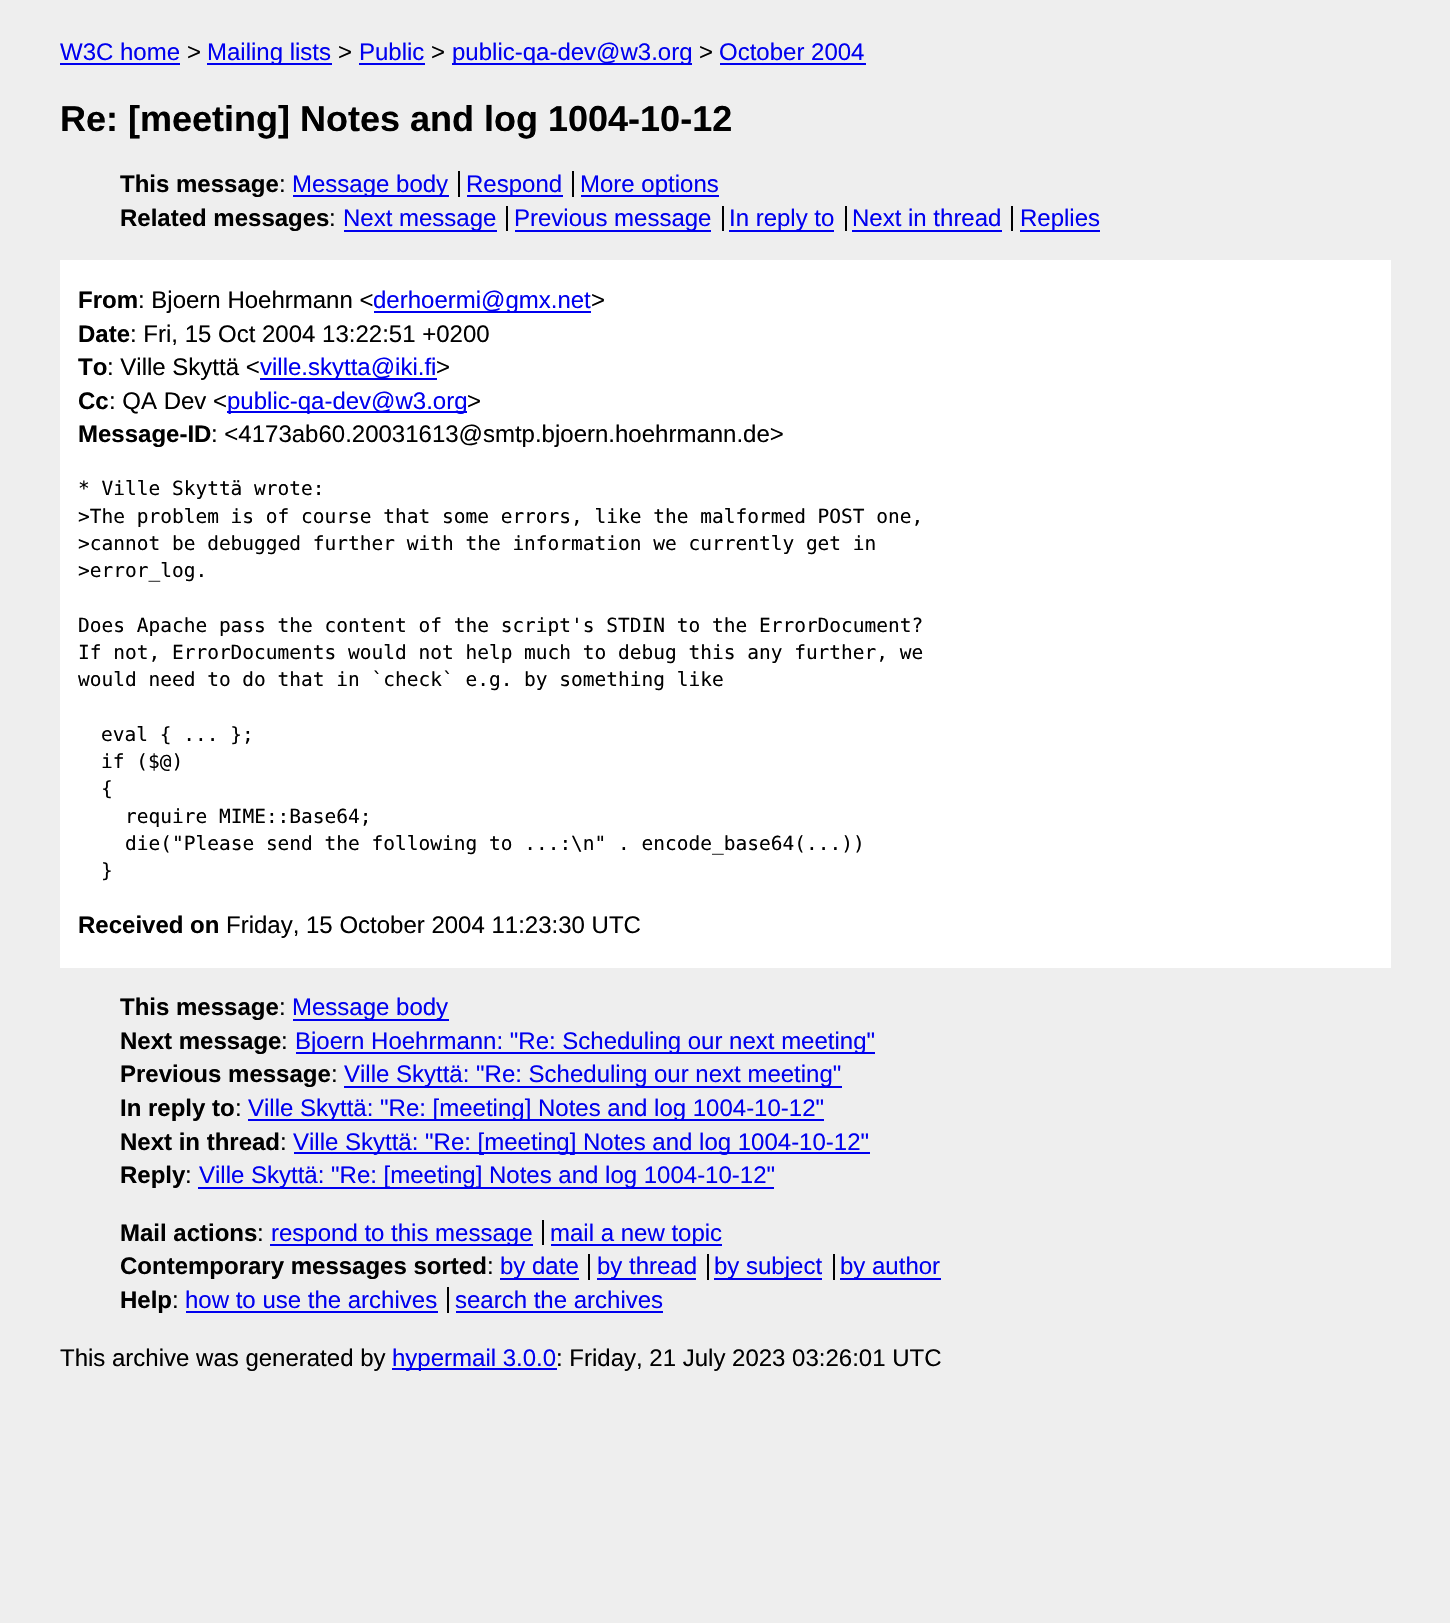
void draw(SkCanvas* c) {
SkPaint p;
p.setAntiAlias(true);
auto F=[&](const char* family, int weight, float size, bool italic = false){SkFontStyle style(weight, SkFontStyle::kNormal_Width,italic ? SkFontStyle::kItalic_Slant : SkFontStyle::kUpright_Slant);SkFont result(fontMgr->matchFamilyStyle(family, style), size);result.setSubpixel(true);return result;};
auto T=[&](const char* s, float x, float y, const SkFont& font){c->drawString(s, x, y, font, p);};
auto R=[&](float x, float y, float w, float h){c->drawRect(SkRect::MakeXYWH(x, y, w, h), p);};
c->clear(0xffeeeeee);
auto f1 = F("Liberation Sans",400,24);
p.setColor(0xff0000ee);
T("W3C home",60,60,f1);
R(60,63,120,2);
p.setColor(0xff000000);
T(">",187,60,f1);
p.setColor(0xff0000ee);
R(207,63,125,2);
T("Mailing lists",207,60,f1);
p.setColor(0xff000000);
T(">",338,60,f1);
p.setColor(0xff0000ee);
T("Public",359,60,f1);
R(359,63,66,2);
p.setColor(0xff000000);
T(">",431,60,f1);
p.setColor(0xff0000ee);
R(452,63,240,2);
T("public-qa-dev@w3.org",452,60,f1);
p.setColor(0xff000000);
T(">",699,60,f1);
p.setColor(0xff0000ee);
T("October 2004",719,60,f1);
R(720,63,146,2);
auto f2 = F("Liberation Sans",700,36);
p.setColor(0xff000000);
T("Re: [meeting] Notes and log 1004-10-12",60,131,f2);
auto f3 = F("Liberation Sans",700,24);
T("This message",120,192,f3);
T(":",279,192,f1);
p.setColor(0xff0000ee);
R(293,195,156,2);
T("Message body",292,192,f1);
R(467,195,96,2);
T("Respond",466,192,f1);
p.setColor(0xff000000);
R(458,171,2,26);
p.setColor(0xff0000ee);
R(581,195,138,2);
T("More options",580,192,f1);
p.setColor(0xff000000);
R(572,171,2,26);
T("Related messages",120,226,f3);
T(":",329,226,f1);
p.setColor(0xff0000ee);
R(344,230,153,2);
T("Next message",343,226,f1);
R(515,230,196,2);
T("Previous message",514,226,f1);
p.setColor(0xff000000);
R(506,206,2,25);
p.setColor(0xff0000ee);
R(729,230,105,2);
T("In reply to",729,226,f1);
p.setColor(0xff000000);
R(722,206,2,25);
p.setColor(0xff0000ee);
T("Next in thread",852,226,f1);
p.setColor(0xff000000);
R(845,206,2,25);
p.setColor(0xff0000ee);
R(852,230,150,2);
R(1020,230,80,2);
T("Replies",1020,226,f1);
p.setColor(0xff000000);
R(1011,206,2,25);
p.setColor(0xffffffff);
R(60,260,1331,708);
p.setColor(0xff000000);
T("From",78,308,f3);
T(": Bjoern Hoehrmann <",138,308,f1);
p.setColor(0xff0000ee);
R(374,311,217,2);
T("derhoermi@gmx.net",373,308,f1);
p.setColor(0xff000000);
T(">",591,308,f1);
T("Date",78,342,f3);
T(": Fri, 15 Oct 2004 13:22:51 +0200",130,342,f1);
T("To",78,375,f3);
T(": Ville Skyttä <",107,375,f1);
p.setColor(0xff0000ee);
R(260,378,177,2);
T("ville.skytta@iki.fi",260,375,f1);
p.setColor(0xff000000);
T(">",436,375,f1);
T("Cc",78,409,f3);
T(": QA Dev <",109,409,f1);
p.setColor(0xff0000ee);
R(227,411,240,2);
T("public-qa-dev@w3.org",227,409,f1);
p.setColor(0xff000000);
T(">",467,409,f1);
T("Message-ID",78,442,f3);
T(": <4173ab60.20031613@smtp.bjoern.hoehrmann.de>",211,442,f1);
auto f4 = F("DejaVu Sans Mono",400,19.5);
T("* Ville Skyttä wrote:",78,495,f4);
T(">The problem is of course that some errors, like the malformed POST one,",78,523,f4);
T(">cannot be debugged further with the information we currently get in",78,550,f4);
T(">error_log.",78,577,f4);
T("Does Apache pass the content of the script's STDIN to the ErrorDocument?",78,632,f4);
T("If not, ErrorDocuments would not help much to debug this any further, we",78,659,f4);
T("would need to do that in `check` e.g. by something like",78,686,f4);
T("eval { ... };",101,741,f4);
T("if ($@)",101,768,f4);
T("{",101,795,f4);
T("require MIME::Base64;",125,823,f4);
T("die(\"Please send the following to ...:\\n\" . encode_base64(...))",125,850,f4);
T("}",101,877,f4);
T("Received on",78,933,f3);
T("Friday, 15 October 2004 11:23:30 UTC",226,933,f1);
T("This message",120,1015,f3);
T(":",279,1015,f1);
p.setColor(0xff0000ee);
R(293,1019,156,2);
T("Message body",292,1015,f1);
p.setColor(0xff000000);
T("Next message",120,1049,f3);
T(":",281,1049,f1);
p.setColor(0xff0000ee);
R(296,1052,579,2);
T("Bjoern Hoehrmann: \"Re: Scheduling our next meeting\"",295,1049,f1);
p.setColor(0xff000000);
T("Previous message",120,1082,f3);
T(":",331,1082,f1);
p.setColor(0xff0000ee);
R(344,1086,498,2);
T("Ville Skyttä: \"Re: Scheduling our next meeting\"",344,1082,f1);
p.setColor(0xff000000);
T("In reply to",120,1116,f3);
T(":",235,1116,f1);
p.setColor(0xff0000ee);
R(248,1119,576,2);
T("Ville Skyttä: \"Re: [meeting] Notes and log 1004-10-12\"",248,1116,f1);
p.setColor(0xff000000);
T("Next in thread",120,1150,f3);
T(":",280,1150,f1);
p.setColor(0xff0000ee);
R(294,1152,576,2);
T("Ville Skyttä: \"Re: [meeting] Notes and log 1004-10-12\"",293,1150,f1);
p.setColor(0xff000000);
T("Reply",120,1183,f3);
T(":",185,1183,f1);
p.setColor(0xff0000ee);
R(198,1187,576,2);
T("Ville Skyttä: \"Re: [meeting] Notes and log 1004-10-12\"",199,1183,f1);
p.setColor(0xff000000);
T("Mail actions",120,1241,f3);
T(":",257,1241,f1);
p.setColor(0xff0000ee);
R(270,1244,263,2);
T("respond to this message",271,1241,f1);
R(551,1244,171,2);
T("mail a new topic",550,1241,f1);
p.setColor(0xff000000);
R(542,1220,2,25);
T("Contemporary messages sorted",120,1274,f3);
T(":",487,1274,f1);
p.setColor(0xff0000ee);
R(500,1278,79,2);
T("by date",500,1274,f1);
R(597,1278,99,2);
T("by thread",597,1274,f1);
p.setColor(0xff000000);
R(588,1254,2,26);
p.setColor(0xff0000ee);
R(714,1278,108,2);
T("by subject",714,1274,f1);
p.setColor(0xff000000);
R(707,1254,2,26);
p.setColor(0xff0000ee);
R(840,1278,101,2);
T("by author",840,1274,f1);
p.setColor(0xff000000);
R(833,1254,2,26);
T("Help",120,1308,f3);
T(":",172,1308,f1);
p.setColor(0xff0000ee);
T("how to use the archives",185,1308,f1);
R(186,1311,252,2);
T("search the archives",455,1308,f1);
p.setColor(0xff000000);
R(447,1287,2,26);
p.setColor(0xff0000ee);
R(456,1311,207,2);
p.setColor(0xff000000);
T("This archive was generated by",60,1366,f1);
p.setColor(0xff0000ee);
R(392,1368,165,2);
T("hypermail 3.0.0",392,1366,f1);
p.setColor(0xff000000);
T(": Friday, 21 July 2023 03:26:01 UTC",556,1366,f1);
}
